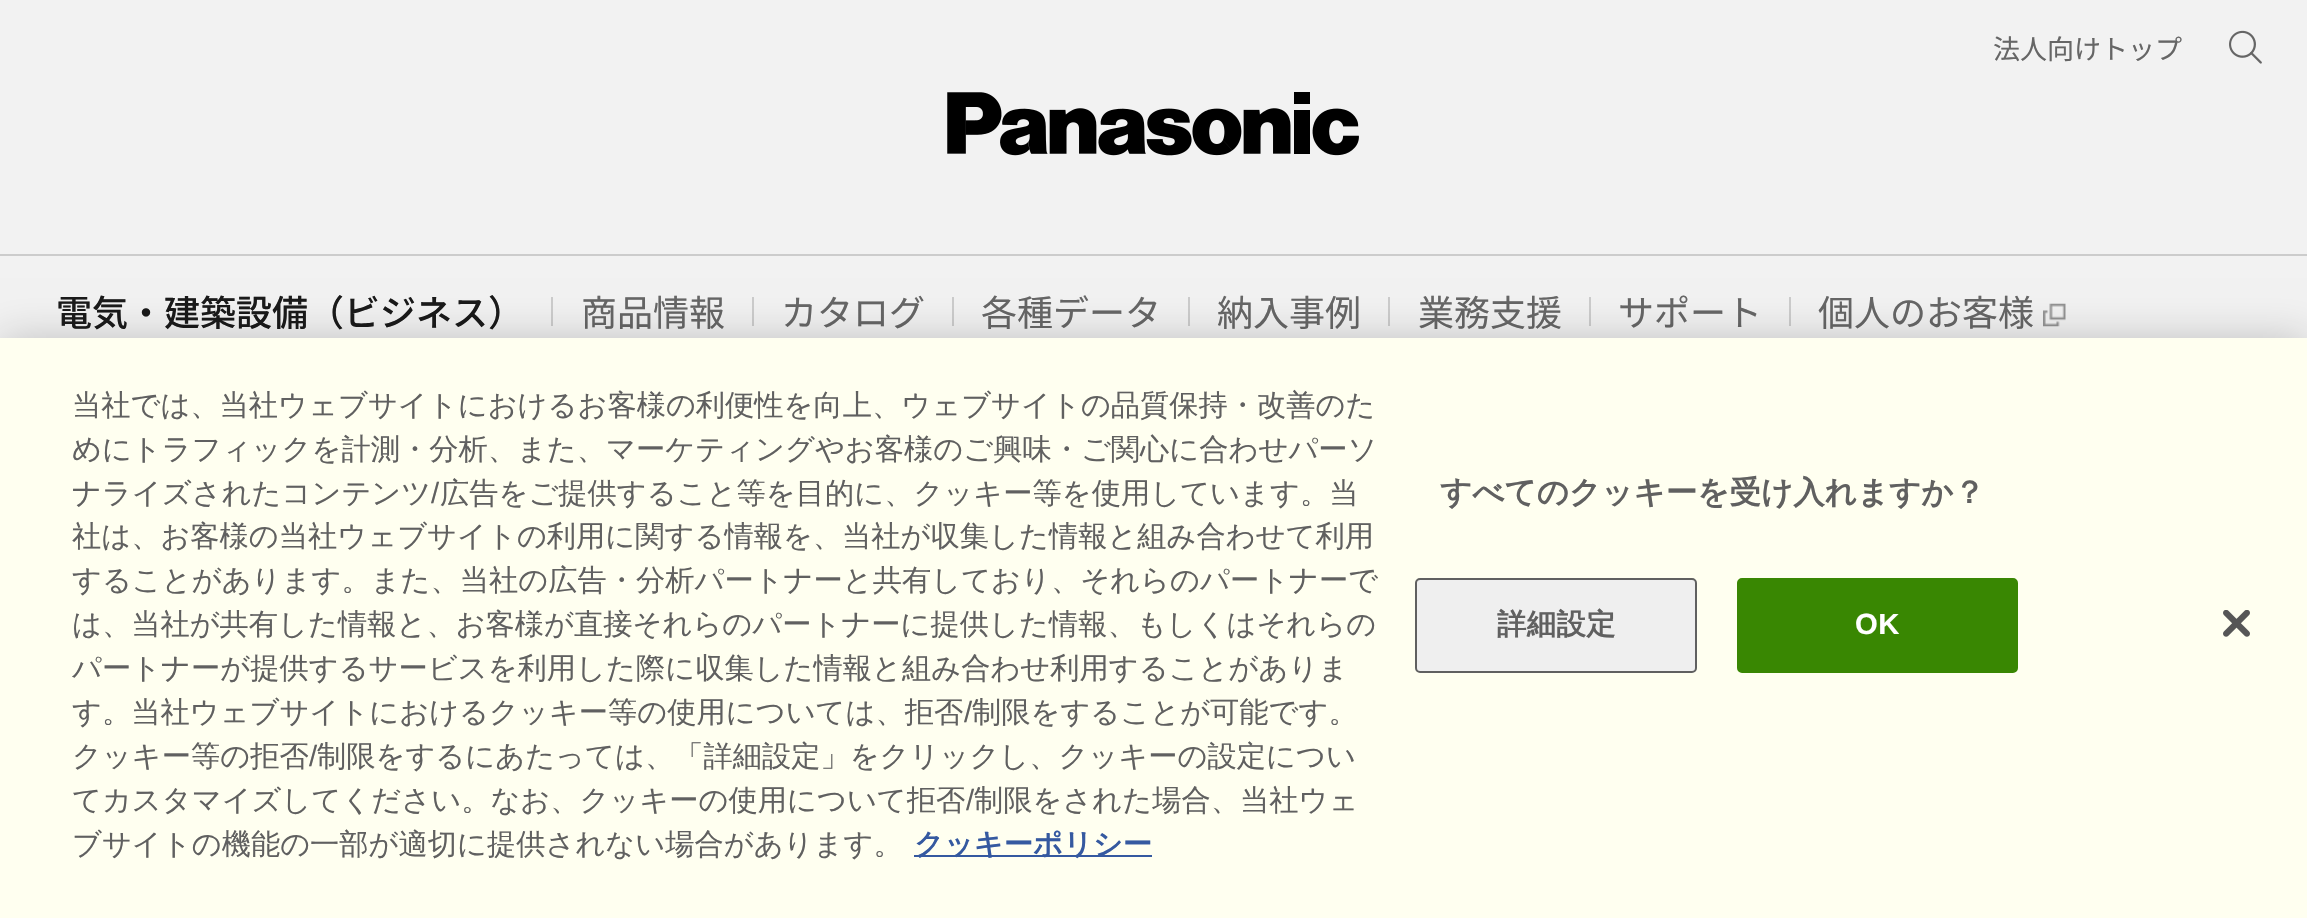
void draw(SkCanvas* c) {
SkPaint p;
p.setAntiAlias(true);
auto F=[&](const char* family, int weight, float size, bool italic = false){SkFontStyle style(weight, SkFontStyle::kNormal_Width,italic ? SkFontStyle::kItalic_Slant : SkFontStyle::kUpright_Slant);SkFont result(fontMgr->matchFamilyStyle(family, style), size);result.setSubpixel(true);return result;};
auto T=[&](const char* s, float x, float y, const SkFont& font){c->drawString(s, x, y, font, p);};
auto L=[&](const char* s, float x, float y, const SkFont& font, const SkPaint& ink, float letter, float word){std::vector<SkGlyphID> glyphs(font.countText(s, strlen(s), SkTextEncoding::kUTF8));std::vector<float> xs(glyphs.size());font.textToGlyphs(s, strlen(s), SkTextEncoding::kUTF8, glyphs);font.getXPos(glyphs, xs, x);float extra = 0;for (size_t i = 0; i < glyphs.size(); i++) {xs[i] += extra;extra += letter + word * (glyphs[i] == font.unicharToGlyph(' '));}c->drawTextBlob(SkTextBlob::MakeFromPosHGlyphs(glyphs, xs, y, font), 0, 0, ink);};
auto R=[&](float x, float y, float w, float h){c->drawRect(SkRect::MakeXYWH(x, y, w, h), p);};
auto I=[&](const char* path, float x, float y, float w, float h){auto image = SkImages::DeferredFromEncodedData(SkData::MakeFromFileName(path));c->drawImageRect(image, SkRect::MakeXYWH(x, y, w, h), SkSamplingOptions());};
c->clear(0xfff2f2f2);
auto f1 = F("Noto Sans JP",400,27);
p.setColor(0xff666666);
T("法人向けトップ",1993,59,f1);
I("1.png",2229,30,33,34);
I("2.png",947,92,412,64);
p.setColor(0xffcccccc);
R(0,254,2307,2);
auto f2 = F("Noto Sans JP",500,36);
p.setColor(0xff1a1a1a);
T("電気・建築設備（ビジネス）",56,326,f2);
p.setColor(0xffcccccc);
R(551,297,2,29);
auto f3 = F("Noto Sans JP",400,36);
p.setColor(0xff666666);
T("商品情報",581,326,f3);
p.setColor(0xffcccccc);
R(752,297,2,29);
p.setColor(0xff666666);
T("カタログ",781,326,f3);
p.setColor(0xffcccccc);
R(952,297,2,29);
p.setColor(0xff666666);
T("各種データ",981,326,f3);
p.setColor(0xffcccccc);
R(1188,297,2,29);
p.setColor(0xff666666);
T("納入事例",1217,326,f3);
p.setColor(0xffcccccc);
R(1388,297,2,29);
p.setColor(0xff666666);
T("業務支援",1418,326,f3);
p.setColor(0xffcccccc);
R(1589,297,2,29);
p.setColor(0xff666666);
T("サポート",1618,326,f3);
p.setColor(0xffcccccc);
R(1789,297,2,29);
p.setColor(0xff666666);
T("個人のお客様",1818,326,f3);
I("3.png",2043,303,23,24);
p.setColor(0x33000000);
p.setMaskFilter(SkMaskFilter::MakeBlur(kNormal_SkBlurStyle, 20));
c->drawRect(SkRect::MakeXYWH(0,338,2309,580),p);
p.setMaskFilter(nullptr);
p.setColor(0xfffffff0);
R(0,338,2307,580);
auto f4 = F("WenQuanYi Zen Hei",500,29.25);
p.setColor(0xff606060);
T("当社では、当社ウェブサイトにおけるお客様の利便性を向上、ウェブサイトの品質保持・改善のた",72,415,f4);
T("めにトラフィックを計測・分析、また、マーケティングやお客様のご興味・ご関心に合わせパーソ",72,459,f4);
T("ナライズされたコンテンツ",72,503,f4);
auto f5 = F("Liberation Sans",400,29.25);
T("/",431,503,f5);
T("広告をご提供すること等を目的に、クッキー等を使用しています。当",440,503,f4);
T("社は、お客様の当社ウェブサイトの利用に関する情報を、当社が収集した情報と組み合わせて利用",72,546,f4);
T("することがあります。また、当社の広告・分析パートナーと共有しており、それらのパートナーで",72,590,f4);
T("は、当社が共有した情報と、お客様が直接それらのパートナーに提供した情報、もしくはそれらの",72,634,f4);
T("パートナーが提供するサービスを利用した際に収集した情報と組み合わせ利用することがありま",72,678,f4);
T("す。当社ウェブサイトにおけるクッキー等の使用については、拒否",72,722,f4);
T("/",964,722,f5);
T("制限をすることが可能です。",972,722,f4);
T("クッキー等の拒否",72,766,f4);
T("/",309,766,f5);
T("制限をするにあたっては、「詳細設定」をクリックし、クッキーの設定につい",317,766,f4);
T("てカスタマイズしてください。なお、クッキーの使用について拒否",72,810,f4);
T("/",966,810,f5);
T("制限をされた場合、当社ウェ",974,810,f4);
T("ブサイトの機能の一部が適切に提供されない場合があります。",72,854,f4);
p.setColor(0xff3559a0);
R(914,855,238,2);
auto f6 = F("WenQuanYi Zen Hei",700,29.25);
T("クッキーポリシー",914,854,f6);
auto f7 = F("WenQuanYi Zen Hei",700,31.5);
p.setColor(0xff606060);
T("すべてのクッキーを受け入れますか？",1440,503,f7);
p.setColor(0xffefefef);
c->drawRoundRect(SkRect::MakeXYWH(1416,579,280,93),4,4,p);
p.setStroke(true);
p.setStrokeWidth(2);
p.setColor(0xff606060);
c->drawRoundRect(SkRect::MakeXYWH(1416,579,280,93),4,4,p);
p.setStroke(false);
L("詳細設定",1497,634,f6,p,.5,0);
p.setColor(0xff398702);
c->drawRoundRect(SkRect::MakeXYWH(1738,579,279,93),4,4,p);
p.setStroke(true);
c->drawRoundRect(SkRect::MakeXYWH(1738,579,279,93),4,4,p);
auto f8 = F("Liberation Sans",700,29.25);
p.setStroke(false);
p.setColor(0xffffffff);
L("OK",1855,634,f8,p,.5,0);
I("4.png",2223,610,27,27);
}
